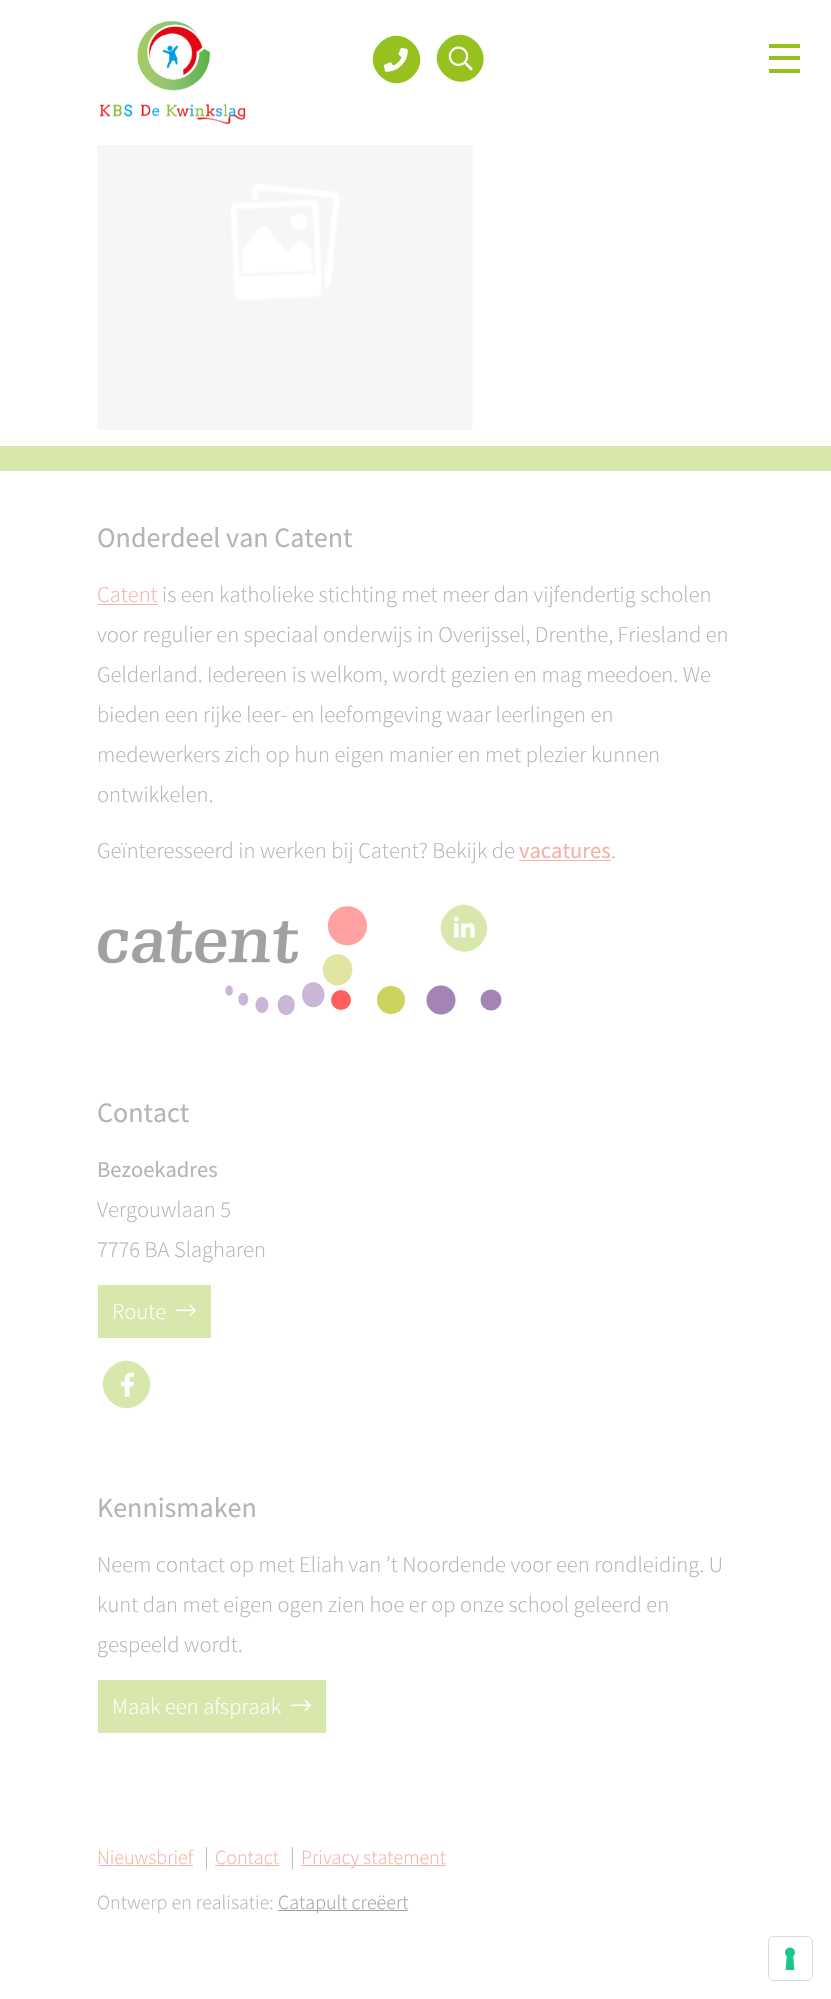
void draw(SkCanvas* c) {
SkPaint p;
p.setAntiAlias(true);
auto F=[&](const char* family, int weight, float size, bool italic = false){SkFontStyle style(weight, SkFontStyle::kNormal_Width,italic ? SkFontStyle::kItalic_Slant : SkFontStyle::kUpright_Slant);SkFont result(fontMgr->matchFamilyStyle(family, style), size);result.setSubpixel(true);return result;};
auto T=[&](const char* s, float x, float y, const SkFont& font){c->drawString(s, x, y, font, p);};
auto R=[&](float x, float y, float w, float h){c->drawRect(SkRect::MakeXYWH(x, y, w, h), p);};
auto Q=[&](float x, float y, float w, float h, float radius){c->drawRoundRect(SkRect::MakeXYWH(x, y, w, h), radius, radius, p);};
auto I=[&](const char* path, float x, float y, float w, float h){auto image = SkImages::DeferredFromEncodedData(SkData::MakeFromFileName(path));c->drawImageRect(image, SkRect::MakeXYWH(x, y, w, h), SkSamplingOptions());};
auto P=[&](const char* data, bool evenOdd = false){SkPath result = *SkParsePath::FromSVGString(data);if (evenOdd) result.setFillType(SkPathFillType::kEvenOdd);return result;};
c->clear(0xffffffff);
I("1.png",99,20,147,105);
p.setColor(0xff96c11f);
c->drawPath(P("M380 43c22-22 55 11 33 33c-22 22-55-11-33-33z"),p);
I("2.png",383,47,25,25);
c->drawPath(P("M444 42c21-22 54 11 33 33c-22 21-55-12-33-33z"),p);
I("3.png",448,46,25,25);
R(769,56,31,4);
R(769,44,31,4);
R(769,69,31,4);
I("4.png",97,145,376,285);
p.setColor(0xffd8e8ac);
R(0,446,831,25);
auto f1 = F("Source Sans Pro",400,28);
p.setColor(0xffb4b4b4);
T("Onderdeel van Catent",97,547,f1);
auto f2 = F("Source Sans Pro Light",300,22.5);
p.setColor(0xfff5b2a7);
T("Catent",97,602,f2);
R(98,604,60,1);
p.setColor(0xffb4b4b4);
T("is een katholieke stichting met meer dan vijfendertig scholen",162,602,f2);
T("voor regulier en speciaal onderwijs in Overijssel, Drenthe, Friesland en",97,642,f2);
T("Gelderland. Iedereen is welkom, wordt gezien en mag meedoen. We",97,682,f2);
T("bieden een rijke leer- en leefomgeving waar leerlingen en",97,722,f2);
T("medewerkers zich op hun eigen manier en met plezier kunnen",97,762,f2);
T("ontwikkelen.",97,802,f2);
T("Geïnteresseerd in werken bij Catent? Bekijk de",97,858,f2);
auto f3 = F("Source Sans Pro",400,22.5);
p.setColor(0xfff5b2a7);
T("vacatures",519,858,f3);
R(519,860,92,1);
p.setColor(0xffb4b4b4);
T(".",611,858,f2);
I("5.png",98,906,269,109);
p.setColor(0xffd8e8ac);
c->drawPath(P("M448 912c21-22 54 11 32 33c-21 21-54-12-32-33z"),p);
I("6.png",453,916,22,22);
p.setColor(0xffb4b4b4);
T("Contact",97,1122,f1);
T("Bezoekadres",97,1177,f3);
T("Vergouwlaan 5",97,1217,f2);
T("7776 BA Slagharen",97,1257,f2);
p.setColor(0xffd8e8ac);
R(98,1285,113,53);
p.setColor(0xffffffff);
T("Route",112,1319,f2);
I("7.png",176,1304,20,12);
p.setColor(0xffd8e8ac);
c->drawPath(P("M110 1368c22-22 55 11 33 33c-22 22-55-11-33-33z"),p);
I("8.png",121,1372,13,25);
p.setColor(0xffb4b4b4);
T("Kennismaken",97,1517,f1);
T("Neem contact op met Eliah van ’t Noordende voor een rondleiding. U",97,1572,f2);
T("kunt dan met eigen ogen zien hoe er op onze school geleerd en",97,1612,f2);
T("gespeeld wordt.",97,1652,f2);
p.setColor(0xffd8e8ac);
R(98,1680,228,53);
p.setColor(0xffffffff);
T("Maak een afspraak",112,1714,f2);
I("7.png",291,1699,20,12);
auto f4 = F("Source Sans Pro Light",300,20);
p.setColor(0xfff5b2a7);
T("Nieuwsbrief",97,1864,f4);
R(98,1865,95,1);
p.setColor(0xffb4b4b4);
T("|",204,1864,f2);
p.setColor(0xfff5b2a7);
T("Contact",215,1864,f4);
R(215,1865,64,1);
p.setColor(0xffb4b4b4);
T("|",290,1864,f2);
p.setColor(0xfff5b2a7);
R(301,1865,145,1);
T("Privacy statement",301,1864,f4);
p.setColor(0xffb4b4b4);
T("Ontwerp en realisatie:",97,1909,f4);
p.setColor(0xffa1a1a1);
R(278,1910,130,1);
T("Catapult creëert",278,1909,f4);
p.setColor(0xffff5e5e);
c->drawCircle(341,1000,10,p);
p.setColor(0xffcdd35e);
c->drawCircle(391,1000,14,p);
p.setColor(0xffa483b7);
c->drawCircle(441,1000,14.5,p);
c->drawCircle(491,1000,10.5,p);
p.setStroke(true);
p.setStrokeWidth(1);
p.setColor(0xffd9d9d9);
c->drawRoundRect(SkRect::MakeXYWH(768.5,1936.5,44,44),5.5,5.5,p);
p.setStroke(false);
p.setColor(0xffffffff);
Q(769,1938,42,42,5);
I("9.png",785,1947,10,23);
}
